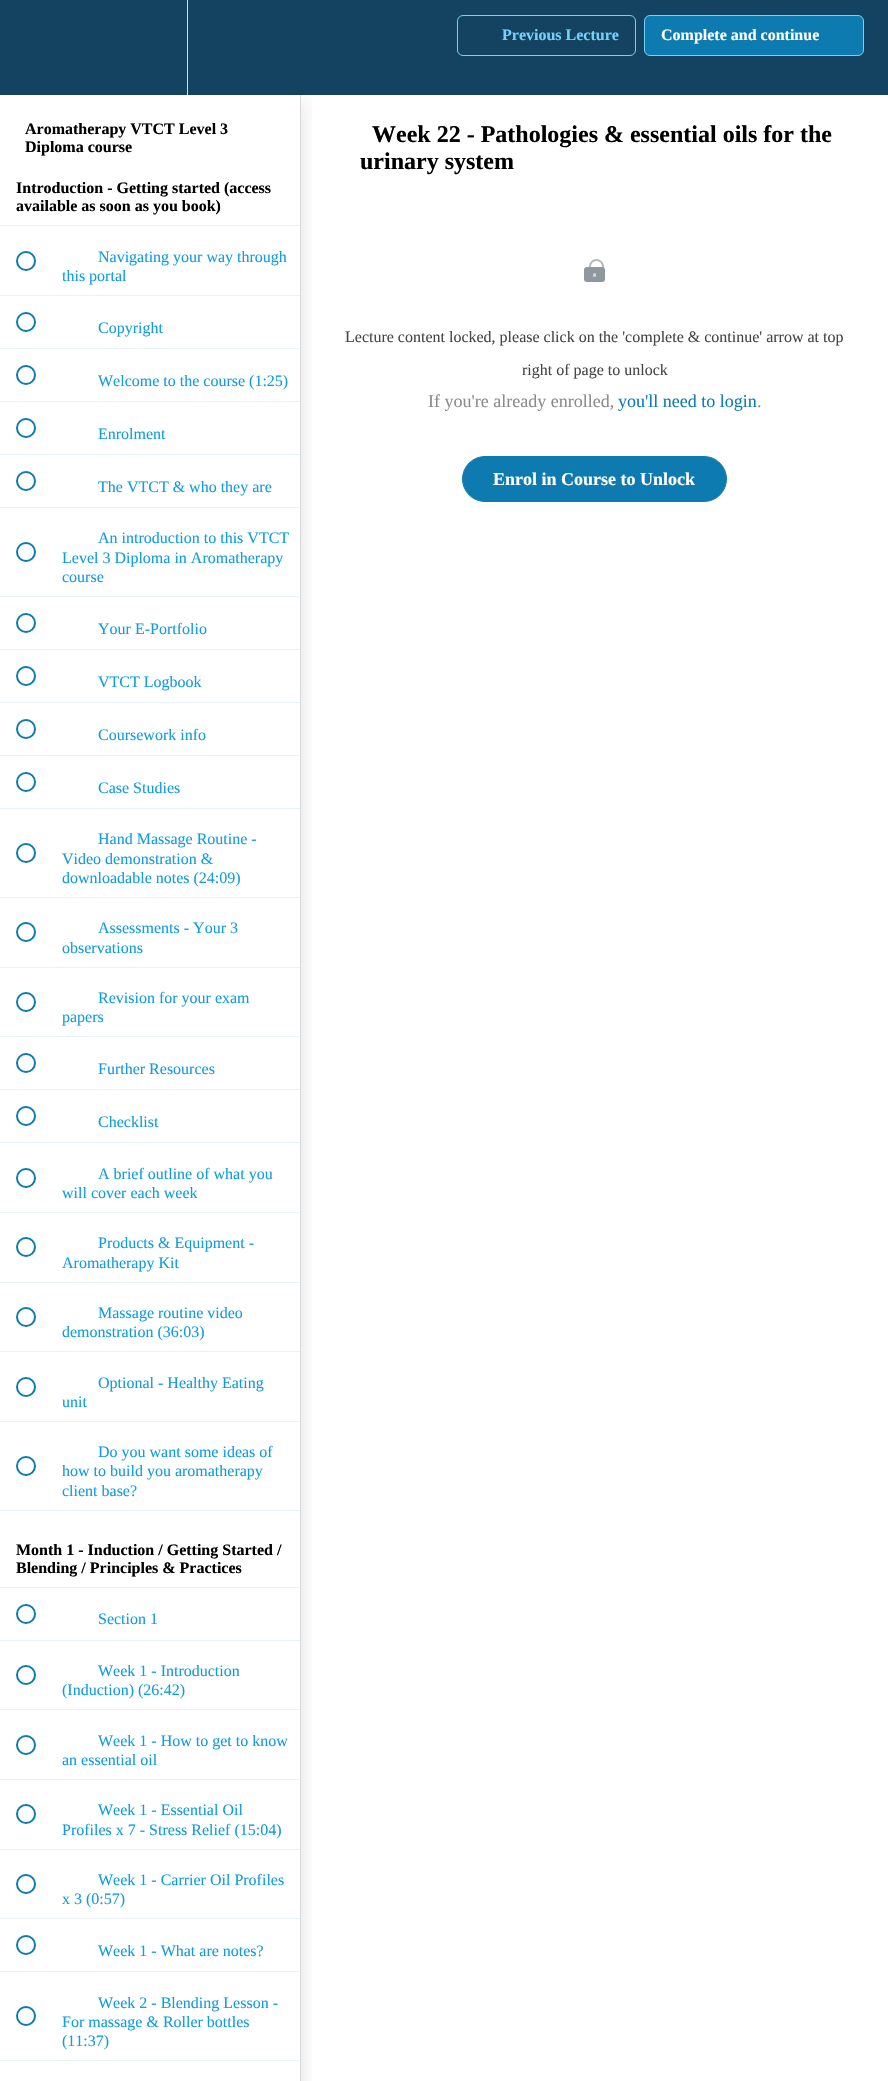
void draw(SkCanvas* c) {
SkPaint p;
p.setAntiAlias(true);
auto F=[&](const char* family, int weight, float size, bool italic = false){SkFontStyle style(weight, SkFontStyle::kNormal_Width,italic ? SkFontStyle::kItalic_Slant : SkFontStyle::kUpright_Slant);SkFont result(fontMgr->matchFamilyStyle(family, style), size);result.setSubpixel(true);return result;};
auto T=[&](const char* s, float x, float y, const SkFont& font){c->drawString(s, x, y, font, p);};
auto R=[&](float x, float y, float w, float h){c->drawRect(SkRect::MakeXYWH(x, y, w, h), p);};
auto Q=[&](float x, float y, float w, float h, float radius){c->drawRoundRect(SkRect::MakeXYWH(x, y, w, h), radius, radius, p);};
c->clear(0xffffffff);
c->save();
c->clipRect(SkRect::MakeXYWH(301,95,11,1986));
p.setColor(0x2620272d);
p.setMaskFilter(SkMaskFilter::MakeBlur(kNormal_SkBlurStyle, 10));
c->drawRect(SkRect::MakeXYWH(0,101,301,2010),p);
p.setMaskFilter(nullptr);
c->restore();
p.setColor(0xff134361);
R(0,0,888,95);
p.setColor(0xffd7dadb);
R(187,0,1,95);
p.setStroke(true);
p.setStrokeWidth(1);
p.setColor(0xff75d1fc);
c->drawRoundRect(SkRect::MakeXYWH(457.5,15.5,178,40),5.5,5.5,p);
auto f1 = F("Liberation Serif",700,16);
p.setStroke(false);
T("Previous Lecture",502,40,f1);
p.setColor(0xff0d7baf);
c->drawRoundRect(SkRect::MakeXYWH(644.5,15.5,219,40),5.5,5.5,p);
p.setStroke(true);
p.setColor(0xff75d1fc);
c->drawRoundRect(SkRect::MakeXYWH(644.5,15.5,219,40),5.5,5.5,p);
p.setStroke(false);
p.setColor(0xffffffff);
T("Complete and continue",661,40,f1);
p.setColor(0xffd7dadb);
R(300,95,1,1986);
p.setColor(0xff000000);
T("Aromatherapy VTCT Level 3",25,134,f1);
T("Diploma course",25,152,f1);
p.setColor(0xffe7f2f7);
R(0,225,300,1);
p.setColor(0xff000000);
T("Introduction - Getting started (access",16,193,f1);
T("available as soon as you book)",16,211,f1);
p.setColor(0xffe7f2f7);
R(0,295,300,1);
p.setStroke(true);
p.setStrokeWidth(2);
p.setColor(0xff0d7baf);
c->drawCircle(26,261,9,p);
auto f2 = F("Liberation Serif",400,16);
p.setStroke(false);
p.setColor(0xff119cde);
T("Navigating your way through",98,262,f2);
T("this portal",62,281,f2);
p.setColor(0xffe7f2f7);
R(0,348,300,1);
p.setStroke(true);
p.setColor(0xff0d7baf);
c->drawCircle(26,322,9,p);
p.setStroke(false);
p.setColor(0xff119cde);
T("Copyright",98,333,f2);
p.setColor(0xffe7f2f7);
R(0,401,300,1);
p.setStroke(true);
p.setColor(0xff0d7baf);
c->drawCircle(26,375,9,p);
p.setStroke(false);
p.setColor(0xff119cde);
T("Welcome to the course (1:25)",98,386,f2);
p.setColor(0xffe7f2f7);
R(0,454,300,1);
p.setStroke(true);
p.setColor(0xff0d7baf);
c->drawCircle(26,428,9,p);
p.setStroke(false);
p.setColor(0xff119cde);
T("Enrolment",98,439,f2);
p.setColor(0xffe7f2f7);
R(0,507,300,1);
p.setStroke(true);
p.setColor(0xff0d7baf);
c->drawCircle(26,481,9,p);
p.setStroke(false);
p.setColor(0xff119cde);
T("The VTCT & who they are",98,492,f2);
p.setColor(0xffe7f2f7);
R(0,596,300,1);
p.setStroke(true);
p.setColor(0xff0d7baf);
c->drawCircle(26,552,9,p);
p.setStroke(false);
p.setColor(0xff119cde);
T("An introduction to this VTCT",98,543,f2);
T("Level 3 Diploma in Aromatherapy",62,563,f2);
T("course",62,582,f2);
p.setColor(0xffe7f2f7);
R(0,649,300,1);
p.setStroke(true);
p.setColor(0xff0d7baf);
c->drawCircle(26,623,9,p);
p.setStroke(false);
p.setColor(0xff119cde);
T("Your E-Portfolio",98,634,f2);
p.setColor(0xffe7f2f7);
R(0,702,300,1);
p.setStroke(true);
p.setColor(0xff0d7baf);
c->drawCircle(26,676,9,p);
p.setStroke(false);
p.setColor(0xff119cde);
T("VTCT Logbook",98,687,f2);
p.setColor(0xffe7f2f7);
R(0,755,300,1);
p.setStroke(true);
p.setColor(0xff0d7baf);
c->drawCircle(26,729,9,p);
p.setStroke(false);
p.setColor(0xff119cde);
T("Coursework info",98,740,f2);
p.setColor(0xffe7f2f7);
R(0,808,300,1);
p.setStroke(true);
p.setColor(0xff0d7baf);
c->drawCircle(26,782,9,p);
p.setStroke(false);
p.setColor(0xff119cde);
T("Case Studies",98,793,f2);
p.setColor(0xffe7f2f7);
R(0,897,300,1);
p.setStroke(true);
p.setColor(0xff0d7baf);
c->drawCircle(26,853,9,p);
p.setStroke(false);
p.setColor(0xff119cde);
T("Hand Massage Routine -",98,844,f2);
T("Video demonstration &",62,864,f2);
T("downloadable notes (24:09)",62,883,f2);
p.setColor(0xffe7f2f7);
R(0,967,300,1);
p.setStroke(true);
p.setColor(0xff0d7baf);
c->drawCircle(26,932,9,p);
p.setStroke(false);
p.setColor(0xff119cde);
T("Assessments - Your 3",98,933,f2);
T("observations",62,953,f2);
p.setColor(0xffe7f2f7);
R(0,1036,300,1);
p.setStroke(true);
p.setColor(0xff0d7baf);
c->drawCircle(26,1002,9,p);
p.setStroke(false);
p.setColor(0xff119cde);
T("Revision for your exam",98,1003,f2);
T("papers",62,1022,f2);
p.setColor(0xffe7f2f7);
R(0,1089,300,1);
p.setStroke(true);
p.setColor(0xff0d7baf);
c->drawCircle(26,1063,9,p);
p.setStroke(false);
p.setColor(0xff119cde);
T("Further Resources",98,1074,f2);
p.setColor(0xffe7f2f7);
R(0,1142,300,1);
p.setStroke(true);
p.setColor(0xff0d7baf);
c->drawCircle(26,1116,9,p);
p.setStroke(false);
p.setColor(0xff119cde);
T("Checklist",98,1127,f2);
p.setColor(0xffe7f2f7);
R(0,1212,300,1);
p.setStroke(true);
p.setColor(0xff0d7baf);
c->drawCircle(26,1178,9,p);
p.setStroke(false);
p.setColor(0xff119cde);
T("A brief outline of what you",98,1179,f2);
T("will cover each week",62,1198,f2);
p.setColor(0xffe7f2f7);
R(0,1282,300,1);
p.setStroke(true);
p.setColor(0xff0d7baf);
c->drawCircle(26,1247,9,p);
p.setStroke(false);
p.setColor(0xff119cde);
T("Products & Equipment -",98,1248,f2);
T("Aromatherapy Kit",62,1268,f2);
p.setColor(0xffe7f2f7);
R(0,1351,300,1);
p.setStroke(true);
p.setColor(0xff0d7baf);
c->drawCircle(26,1317,9,p);
p.setStroke(false);
p.setColor(0xff119cde);
T("Massage routine video",98,1318,f2);
T("demonstration (36:03)",62,1337,f2);
p.setColor(0xffe7f2f7);
R(0,1421,300,1);
p.setStroke(true);
p.setColor(0xff0d7baf);
c->drawCircle(26,1387,9,p);
p.setStroke(false);
p.setColor(0xff119cde);
T("Optional - Healthy Eating",98,1388,f2);
T("unit",62,1407,f2);
p.setColor(0xffe7f2f7);
R(0,1510,300,1);
p.setStroke(true);
p.setColor(0xff0d7baf);
c->drawCircle(26,1466,9,p);
p.setStroke(false);
p.setColor(0xff119cde);
T("Do you want some ideas of",98,1457,f2);
T("how to build you aromatherapy",62,1476,f2);
T("client base?",62,1496,f2);
p.setColor(0xffe7f2f7);
R(0,1587,300,1);
p.setColor(0xff000000);
T("Month 1 - Induction / Getting Started /",16,1555,f1);
T("Blending / Principles & Practices",16,1573,f1);
p.setColor(0xffe7f2f7);
R(0,1640,300,1);
p.setStroke(true);
p.setColor(0xff0d7baf);
c->drawCircle(26,1614,9,p);
p.setStroke(false);
p.setColor(0xff119cde);
T("Section 1",98,1624,f2);
p.setColor(0xffe7f2f7);
R(0,1709,300,1);
p.setStroke(true);
p.setColor(0xff0d7baf);
c->drawCircle(26,1675,9,p);
p.setStroke(false);
p.setColor(0xff119cde);
T("Week 1 - Introduction",98,1676,f2);
T("(Induction) (26:42)",62,1695,f2);
p.setColor(0xffe7f2f7);
R(0,1779,300,1);
p.setStroke(true);
p.setColor(0xff0d7baf);
c->drawCircle(26,1745,9,p);
p.setStroke(false);
p.setColor(0xff119cde);
T("Week 1 - How to get to know",98,1746,f2);
T("an essential oil",62,1765,f2);
p.setColor(0xffe7f2f7);
R(0,1849,300,1);
p.setStroke(true);
p.setColor(0xff0d7baf);
c->drawCircle(26,1814,9,p);
p.setStroke(false);
p.setColor(0xff119cde);
T("Week 1 - Essential Oil",98,1815,f2);
T("Profiles x 7 - Stress Relief (15:04)",62,1835,f2);
p.setColor(0xffe7f2f7);
R(0,1918,300,1);
p.setStroke(true);
p.setColor(0xff0d7baf);
c->drawCircle(26,1884,9,p);
p.setStroke(false);
p.setColor(0xff119cde);
T("Week 1 - Carrier Oil Profiles",98,1885,f2);
T("x 3 (0:57)",62,1904,f2);
p.setColor(0xffe7f2f7);
R(0,1971,300,1);
p.setStroke(true);
p.setColor(0xff0d7baf);
c->drawCircle(26,1945,9,p);
p.setStroke(false);
p.setColor(0xff119cde);
T("Week 1 - What are notes?",98,1956,f2);
p.setColor(0xffe7f2f7);
R(0,2060,300,1);
p.setStroke(true);
p.setColor(0xff0d7baf);
c->drawCircle(26,2016,9,p);
p.setStroke(false);
p.setColor(0xff119cde);
T("Week 2 - Blending Lesson -",98,2008,f2);
T("For massage & Roller bottles",62,2027,f2);
T("(11:37)",62,2046,f2);
auto f3 = F("Liberation Serif",700,24);
p.setColor(0xff000000);
T("Week 22 - Pathologies & essential oils for the",372,142,f3);
T("urinary system",360,169,f3);
p.setStroke(true);
p.setColor(0xffb5babf);
c->drawRoundRect(SkRect::MakeXYWH(590,260,13,20),6.5,6.5,p);
p.setStroke(false);
p.setColor(0xff8f989f);
Q(584,267,21,15,3);
p.setColor(0xffd3d7dc);
Q(593,273,3,4,1.5);
p.setColor(0xff454545);
T("Lecture content locked, please click on the 'complete & continue' arrow at top",345,342,f2);
T("right of page to unlock",522,375,f2);
auto f4 = F("Liberation Serif",400,18);
p.setColor(0xff8b8b8b);
T("If you're already enrolled,",428,407,f4);
p.setColor(0xff0d7baf);
T("you'll need to login",618,407,f4);
p.setColor(0xff8b8b8b);
T(".",757,407,f4);
p.setColor(0xff0d7baf);
c->drawRoundRect(SkRect::MakeXYWH(462.5,456.5,264,45),22.5,22.5,p);
p.setStroke(true);
p.setStrokeWidth(1);
c->drawRoundRect(SkRect::MakeXYWH(462.5,456.5,264,45),22.5,22.5,p);
auto f5 = F("Liberation Serif",700,18);
p.setStroke(false);
p.setColor(0xffffffff);
T("Enrol in Course to Unlock",493,485,f5);
}
